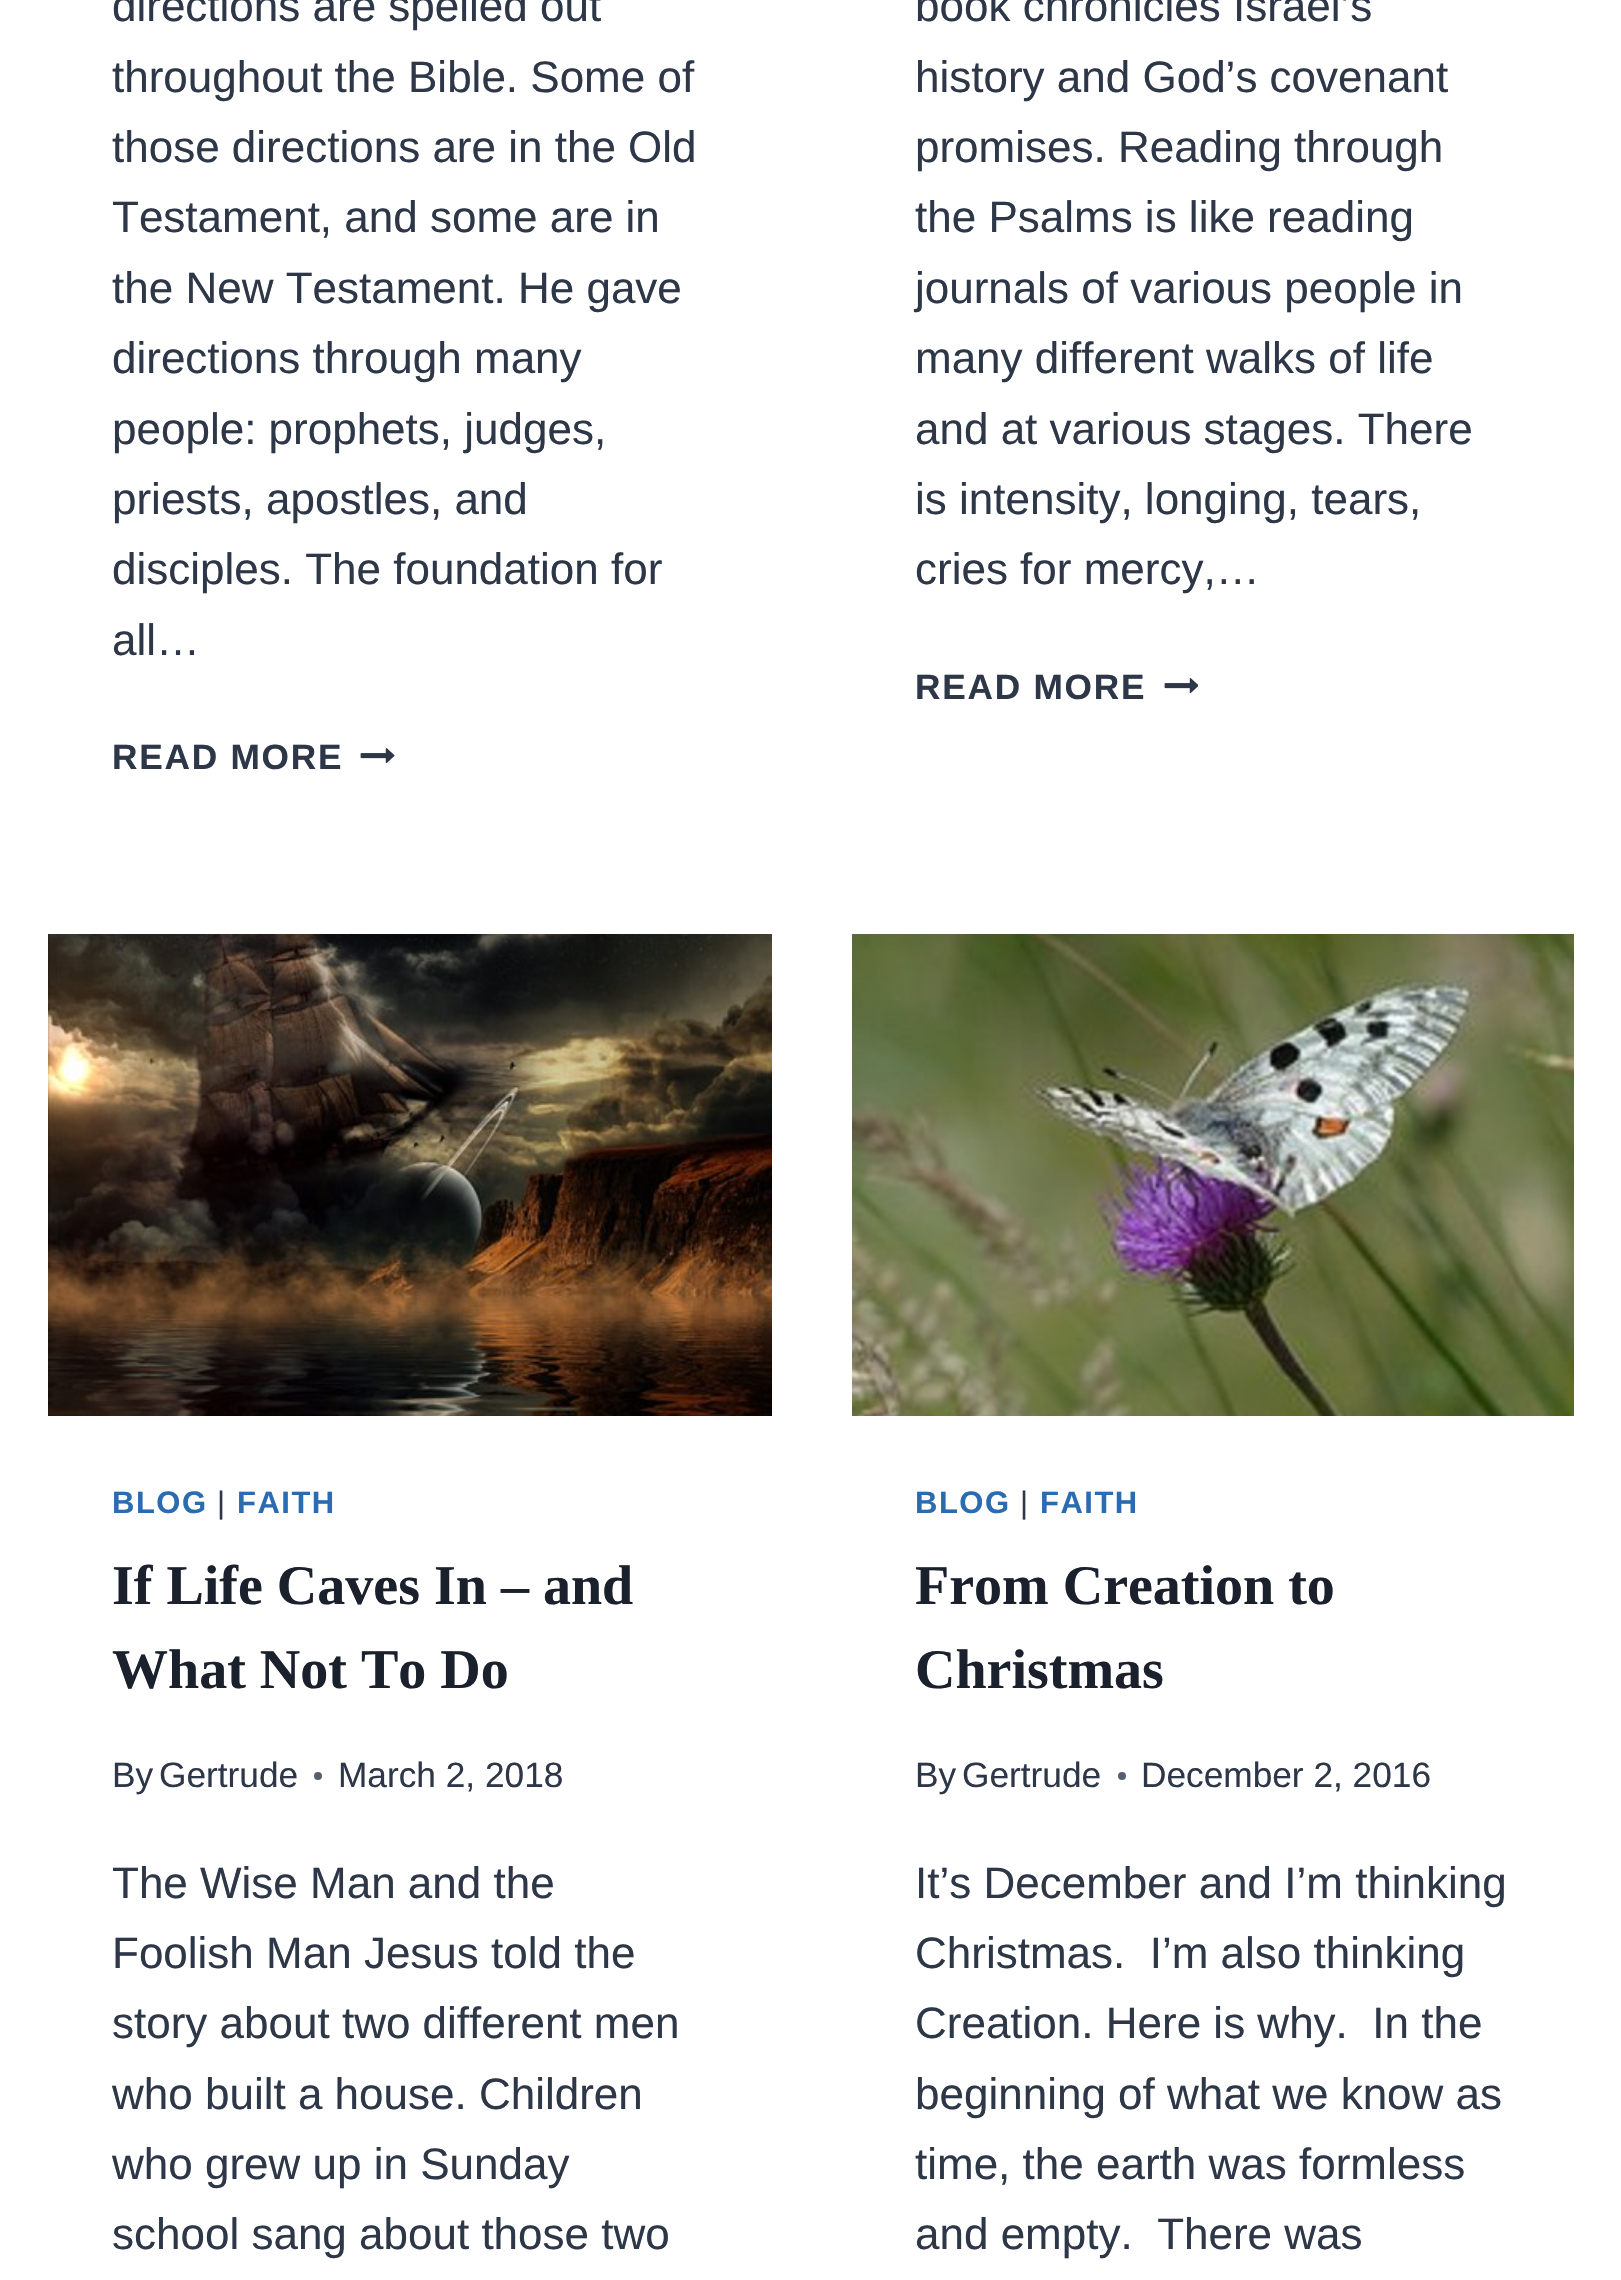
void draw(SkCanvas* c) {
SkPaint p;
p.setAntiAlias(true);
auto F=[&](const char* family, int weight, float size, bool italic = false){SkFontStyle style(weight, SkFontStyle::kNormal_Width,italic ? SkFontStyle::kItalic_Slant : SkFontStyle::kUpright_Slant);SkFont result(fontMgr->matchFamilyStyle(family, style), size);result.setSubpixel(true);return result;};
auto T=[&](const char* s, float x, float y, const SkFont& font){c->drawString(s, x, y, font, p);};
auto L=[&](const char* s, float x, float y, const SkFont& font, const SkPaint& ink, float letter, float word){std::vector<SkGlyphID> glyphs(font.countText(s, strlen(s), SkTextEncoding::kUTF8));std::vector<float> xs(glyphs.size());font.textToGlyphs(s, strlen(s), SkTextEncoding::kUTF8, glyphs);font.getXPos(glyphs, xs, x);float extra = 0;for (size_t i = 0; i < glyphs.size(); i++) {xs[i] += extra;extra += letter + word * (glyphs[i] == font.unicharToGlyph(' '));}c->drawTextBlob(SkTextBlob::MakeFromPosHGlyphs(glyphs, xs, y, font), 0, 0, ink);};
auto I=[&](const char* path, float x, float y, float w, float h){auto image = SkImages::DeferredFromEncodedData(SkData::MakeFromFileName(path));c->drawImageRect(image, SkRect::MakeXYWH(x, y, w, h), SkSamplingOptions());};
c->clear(0xffffffff);
auto f1 = F("Liberation Sans",400,44);
p.setColor(0xff2d3748);
T("directions are spelled out",112,21,f1);
T("throughout the Bible. Some of",112,92,f1);
T("those directions are in the Old",112,162,f1);
T("Testament, and some are in",112,232,f1);
T("the New Testament. He gave",112,303,f1);
T("directions through many",112,373,f1);
T("people: prophets, judges,",112,444,f1);
T("priests, apostles, and",112,514,f1);
T("disciples. The foundation for",112,584,f1);
T("all…",112,655,f1);
auto f2 = F("Liberation Sans",700,35.25);
L("READ MORE",112,769,f2,p,1.75,0);
I("1.png",360,748,35,16);
T("book chronicles Israel’s",915,21,f1);
T("history and God’s covenant",915,92,f1);
T("promises. Reading through",915,162,f1);
T("the Psalms is like reading",915,232,f1);
T("journals of various people in",915,303,f1);
T("many different walks of life",915,373,f1);
T("and at various stages. There",915,444,f1);
T("is intensity, longing, tears,",915,514,f1);
T("cries for mercy,…",915,584,f1);
L("READ MORE",915,699,f2,p,1.75,0);
I("2.png",1164,678,34,16);
I("3.png",48,934,724,482);
auto f3 = F("Liberation Sans",700,31);
p.setColor(0xff2b6cb0);
L("BLOG",112,1513,f3,p,1.5,0);
auto f4 = F("Liberation Sans",400,31);
p.setColor(0xff2d3748);
L("|",217,1513,f4,p,1.5,0);
p.setColor(0xff2b6cb0);
L("FAITH",237,1513,f3,p,1.5,0);
auto f5 = F("Liberation Serif",700,56);
p.setColor(0xff1a202c);
T("If Life Caves In – and",112,1604,f5);
T("What Not To Do",112,1688,f5);
auto f6 = F("Liberation Sans",400,35.25);
p.setColor(0xff2d3748);
T("By",112,1787,f6);
T("Gertrude",159,1787,f6);
p.setColor(0xff575f6d);
c->drawCircle(318,1776,4,p);
p.setColor(0xff2d3748);
T("March 2, 2018",338,1787,f6);
T("The Wise Man and the",112,1898,f1);
T("Foolish Man Jesus told the",112,1968,f1);
T("story about two different men",112,2038,f1);
T("who built a house. Children",112,2109,f1);
T("who grew up in Sunday",112,2179,f1);
T("school sang about those two",112,2249,f1);
I("4.png",852,934,722,482);
p.setColor(0xff2b6cb0);
L("BLOG",915,1513,f3,p,1.5,0);
p.setColor(0xff2d3748);
L("|",1020,1513,f4,p,1.5,0);
p.setColor(0xff2b6cb0);
L("FAITH",1040,1513,f3,p,1.5,0);
p.setColor(0xff1a202c);
T("From Creation to",915,1604,f5);
T("Christmas",915,1688,f5);
p.setColor(0xff2d3748);
T("By",915,1787,f6);
T("Gertrude",962,1787,f6);
p.setColor(0xff575f6d);
c->drawCircle(1122,1776,4,p);
p.setColor(0xff2d3748);
T("December 2, 2016",1141,1787,f6);
T("It’s December and I’m thinking",915,1898,f1);
T("Christmas.  I’m also thinking",915,1968,f1);
T("Creation. Here is why.  In the",915,2038,f1);
T("beginning of what we know as",915,2109,f1);
T("time, the earth was formless",915,2179,f1);
T("and empty.  There was",915,2249,f1);
}
